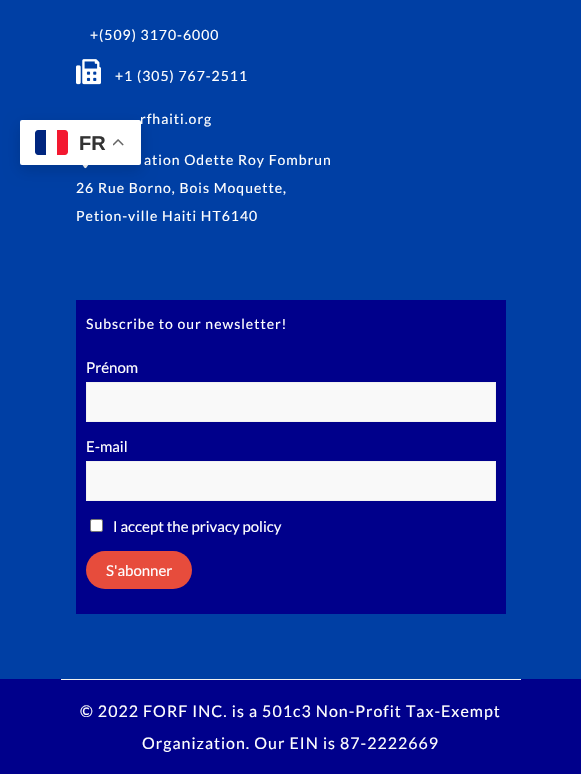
void draw(SkCanvas* c) {
SkPaint p;
p.setAntiAlias(true);
auto F=[&](const char* family, int weight, float size, bool italic = false){SkFontStyle style(weight, SkFontStyle::kNormal_Width,italic ? SkFontStyle::kItalic_Slant : SkFontStyle::kUpright_Slant);SkFont result(fontMgr->matchFamilyStyle(family, style), size);result.setSubpixel(true);return result;};
auto T=[&](const char* s, float x, float y, const SkFont& font){c->drawString(s, x, y, font, p);};
auto L=[&](const char* s, float x, float y, const SkFont& font, const SkPaint& ink, float letter, float word){std::vector<SkGlyphID> glyphs(font.countText(s, strlen(s), SkTextEncoding::kUTF8));std::vector<float> xs(glyphs.size());font.textToGlyphs(s, strlen(s), SkTextEncoding::kUTF8, glyphs);font.getXPos(glyphs, xs, x);float extra = 0;for (size_t i = 0; i < glyphs.size(); i++) {xs[i] += extra;extra += letter + word * (glyphs[i] == font.unicharToGlyph(' '));}c->drawTextBlob(SkTextBlob::MakeFromPosHGlyphs(glyphs, xs, y, font), 0, 0, ink);};
auto R=[&](float x, float y, float w, float h){c->drawRect(SkRect::MakeXYWH(x, y, w, h), p);};
auto Q=[&](float x, float y, float w, float h, float radius){c->drawRoundRect(SkRect::MakeXYWH(x, y, w, h), radius, radius, p);};
auto I=[&](const char* path, float x, float y, float w, float h){auto image = SkImages::DeferredFromEncodedData(SkData::MakeFromFileName(path));c->drawImageRect(image, SkRect::MakeXYWH(x, y, w, h), SkSamplingOptions());};
auto P=[&](const char* data, bool evenOdd = false){SkPath result = *SkParsePath::FromSVGString(data);if (evenOdd) result.setFillType(SkPathFillType::kEvenOdd);return result;};
c->clear(0xff003fa4);
auto f1 = F("Lato",400,14);
p.setColor(0xffffffff);
L("+(509) 3170-6000",90,40,f1,p,1,0);
I("1.png",76,59,25,26);
L("+1 (305) 767-2511",115,81,f1,p,1,0);
L("rfhaiti.org",140,124,f1,p,1,0);
I("2.png",82,165,7,4);
L("ation Odette Roy Fombrun",144,165,f1,p,1,0);
L("26 Rue Borno, Bois Moquette,",76,193,f1,p,1,0);
L("Petion-ville Haiti HT6140",76,221,f1,p,1,0);
p.setColor(0xff00008b);
R(76,300,430,314);
p.setColor(0xffffffff);
L("Subscribe to our newsletter!",86,329,f1,p,1,0);
auto f2 = F("Lato",400,15);
T("Prénom",86,373,f2);
p.setColor(0xfff9f9f9);
c->drawRect(SkRect::MakeXYWH(86.5,382.5,409,39),p);
p.setStroke(true);
p.setStrokeWidth(1);
p.setColor(0xfff1f1f1);
c->drawRect(SkRect::MakeXYWH(86.5,382.5,409,39),p);
p.setStroke(false);
p.setColor(0xffffffff);
T("E-mail",86,452,f2);
p.setColor(0xfff9f9f9);
c->drawRect(SkRect::MakeXYWH(86.5,461.5,409,39),p);
p.setStroke(true);
p.setColor(0xfff1f1f1);
c->drawRect(SkRect::MakeXYWH(86.5,461.5,409,39),p);
p.setStroke(false);
p.setColor(0xffffffff);
c->drawRoundRect(SkRect::MakeXYWH(90.5,519.5,12,12),1.5,1.5,p);
p.setStroke(true);
p.setColor(0xff767676);
c->drawRoundRect(SkRect::MakeXYWH(90.5,519.5,12,12),1.5,1.5,p);
p.setStroke(false);
p.setColor(0xffffffff);
T("I accept the privacy policy",113,532,f2);
p.setColor(0xffe74c3c);
Q(86,551,106,38,19);
p.setColor(0xffffffff);
T("S'abonner",106,576,f2);
p.setColor(0xff00008b);
R(0,679,581,95);
p.setColor(0xfff1f1f1);
R(61,679,460,1);
auto f3 = F("Lato",400,16);
p.setColor(0xffffffff);
L("© 2022 FORF INC. is a 501c3 Non-Profit Tax-Exempt",80,717,f3,p,1,0);
L("Organization. Our EIN is 87-2222669",142,749,f3,p,1,0);
p.setColor(0x26000000);
p.setMaskFilter(SkMaskFilter::MakeBlur(kNormal_SkBlurStyle, 7.5));
c->drawRoundRect(SkRect::MakeXYWH(20,125,121,45),2,2,p);
p.setMaskFilter(nullptr);
p.setColor(0xffffffff);
Q(20,120,121,45,2);
p.setColor(0xff00267f);
c->drawPath(P("M38 130h8v25h-8c-1.5 0-3-1.5-3-3v-19c0-1.5 1.5-3 3-3z"),p);
p.setColor(0xfff31830);
c->drawPath(P("M57 130h8c1.5 0 3 1.5 3 3v19c0 1.5-1.5 3-3 3h-8z"),p);
auto f4 = F("Liberation Sans",700,20);
p.setColor(0xff333333);
T("FR",79,150,f4);
I("3.png",113,139,11,7);
}
